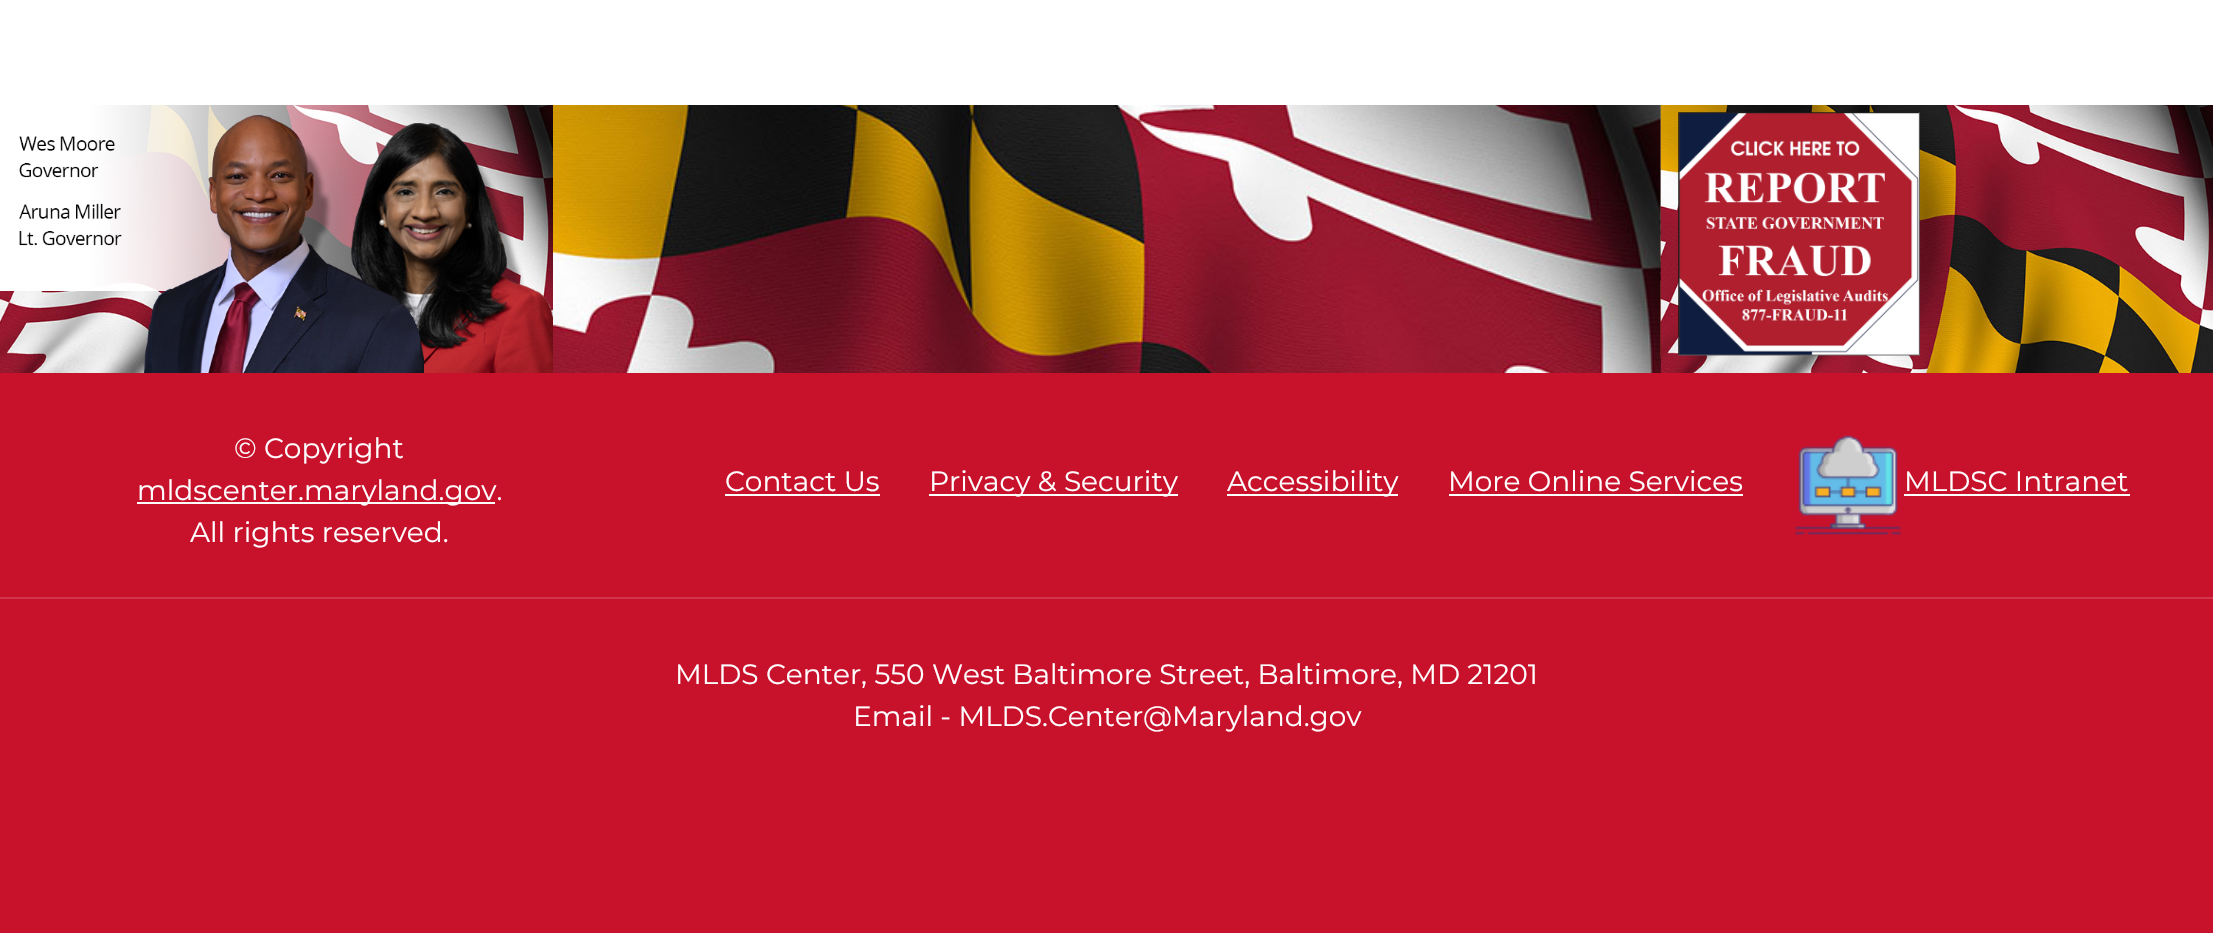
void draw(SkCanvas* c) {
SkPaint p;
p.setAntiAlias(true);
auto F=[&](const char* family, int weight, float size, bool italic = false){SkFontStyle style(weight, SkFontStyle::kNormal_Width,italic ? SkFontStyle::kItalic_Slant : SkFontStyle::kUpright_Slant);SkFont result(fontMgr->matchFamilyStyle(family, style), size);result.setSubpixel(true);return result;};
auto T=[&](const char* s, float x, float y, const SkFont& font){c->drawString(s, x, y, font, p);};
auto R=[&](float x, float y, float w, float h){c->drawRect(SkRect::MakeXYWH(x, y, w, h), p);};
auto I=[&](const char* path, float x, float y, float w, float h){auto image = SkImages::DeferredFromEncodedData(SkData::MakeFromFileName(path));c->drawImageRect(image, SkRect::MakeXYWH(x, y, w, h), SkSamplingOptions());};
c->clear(0xffffffff);
I("1.png",1660,105,1,268);
I("2.png",0,105,553,268);
I("3.png",0,105,553,268);
I("4.png",553,105,1108,268);
I("5.png",1660,105,553,268);
I("6.png",1678,112,242,244);
p.setColor(0xffc8122c);
R(0,373,2213,224);
auto f1 = F("Montserrat",400,28);
p.setColor(0xffffffff);
T("© Copyright",234,458,f1);
R(137,502,358,2);
T("mldscenter.maryland.gov.",137,500,f1);
T("All rights reserved.",190,542,f1);
T("Contact Us",725,491,f1);
R(725,494,155,2);
R(929,494,249,2);
T("Privacy & Security",929,491,f1);
R(1227,494,171,2);
T("Accessibility",1227,491,f1);
T("More Online Services",1448,491,f1);
R(1449,494,294,2);
I("7.png",1795,435,106,100);
T("MLDSC Intranet",1904,491,f1);
R(1904,494,226,2);
p.setColor(0xffc8122c);
R(0,599,2213,334);
p.setColor(0xffd0364c);
R(0,597,2213,2);
p.setColor(0xffffffff);
T("MLDS Center, 550 West Baltimore Street, Baltimore, MD 21201",675,684,f1);
T("Email - MLDS.Center@Maryland.gov",853,726,f1);
}
